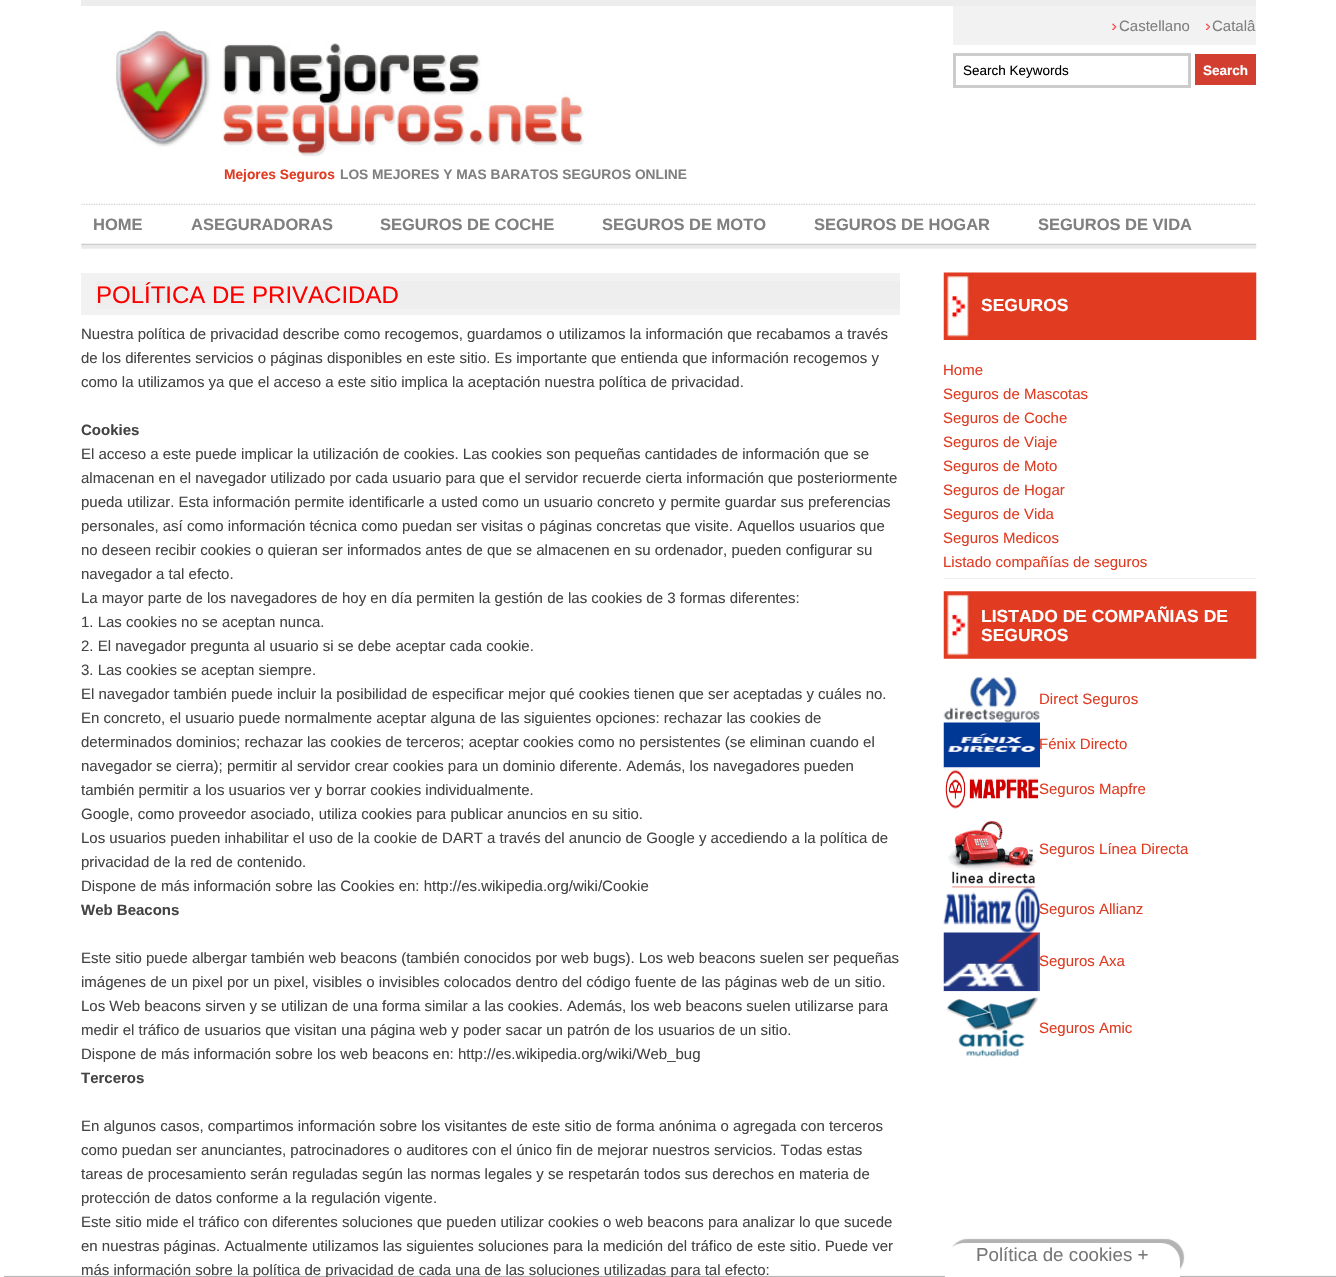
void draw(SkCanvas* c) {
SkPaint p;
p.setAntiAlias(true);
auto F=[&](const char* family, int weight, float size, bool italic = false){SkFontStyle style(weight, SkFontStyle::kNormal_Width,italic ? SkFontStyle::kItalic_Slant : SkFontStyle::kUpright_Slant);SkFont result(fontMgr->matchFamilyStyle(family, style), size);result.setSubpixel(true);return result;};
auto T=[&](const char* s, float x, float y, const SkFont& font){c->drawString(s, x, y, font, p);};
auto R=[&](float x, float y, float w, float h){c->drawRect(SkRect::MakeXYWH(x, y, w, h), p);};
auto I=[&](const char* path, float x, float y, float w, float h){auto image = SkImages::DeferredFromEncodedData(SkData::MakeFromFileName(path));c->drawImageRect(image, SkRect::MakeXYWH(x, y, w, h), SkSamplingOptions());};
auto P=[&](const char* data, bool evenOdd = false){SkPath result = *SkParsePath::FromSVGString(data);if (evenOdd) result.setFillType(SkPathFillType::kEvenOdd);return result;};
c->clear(0xffffffff);
p.setColor(0xffededed);
R(81,0,1175,6);
p.setColor(0xfff2f2f2);
R(953,6,303,39);
I("1.png",1112,23,5,7);
auto f1 = F("Liberation Sans",400,15);
p.setColor(0xff808080);
T("Castellano",1119,31,f1);
I("2.png",1206,23,4,7);
T("Catalâ",1212,31,f1);
p.setStroke(true);
p.setStrokeWidth(3);
p.setColor(0xffcccccc);
c->drawRect(SkRect::MakeXYWH(954.5,54.5,235,32),p);
auto f2 = F("Liberation Sans",400,13.5);
p.setStroke(false);
p.setColor(0xff000000);
T("Search Keywords",963,75,f2);
p.setColor(0xffd23e30);
R(1195,54,61,31);
auto f3 = F("Liberation Sans",700,13.5);
p.setColor(0xffffffff);
T("Search",1203,75,f3);
I("3.png",114,31,470,126);
auto f4 = F("Liberation Sans",700,13.75);
p.setColor(0xffe03c23);
T("Mejores Seguros",224,179,f4);
p.setColor(0xff808080);
T("LOS MEJORES Y MAS BARATOS SEGUROS ONLINE",340,179,f4);
I("4.png",81,203,1176,46);
auto f5 = F("Liberation Sans",700,16.5);
T("HOME",93,230,f5);
T("ASEGURADORAS",191,230,f5);
T("SEGUROS DE COCHE",380,230,f5);
T("SEGUROS DE MOTO",602,230,f5);
T("SEGUROS DE HOGAR",814,230,f5);
T("SEGUROS DE VIDA",1038,230,f5);
p.setColor(0xfff2f2f2);
R(81,273,819,42);
p.setColor(0xffeeeeee);
R(96,281,804,28);
auto f6 = F("Liberation Sans",400,24);
p.setColor(0xffff0000);
T("POLÍTICA DE PRIVACIDAD",96,303,f6);
p.setColor(0xff444444);
T("Nuestra política de privacidad describe como recogemos, guardamos o utilizamos la información que recabamos a través",81,339,f1);
T("de los diferentes servicios o páginas disponibles en este sitio. Es importante que entienda que información recogemos y",81,363,f1);
T("como la utilizamos ya que el acceso a este sitio implica la aceptación nuestra política de privacidad.",81,387,f1);
auto f7 = F("Liberation Sans",700,15);
T("Cookies",81,435,f7);
T("El acceso a este puede implicar la utilización de cookies. Las cookies son pequeñas cantidades de información que se",81,459,f1);
T("almacenan en el navegador utilizado por cada usuario para que el servidor recuerde cierta información que posteriormente",81,483,f1);
T("pueda utilizar. Esta información permite identificarle a usted como un usuario concreto y permite guardar sus preferencias",81,507,f1);
T("personales, así como información técnica como puedan ser visitas o páginas concretas que visite. Aquellos usuarios que",81,531,f1);
T("no deseen recibir cookies o quieran ser informados antes de que se almacenen en su ordenador, pueden configurar su",81,555,f1);
T("navegador a tal efecto.",81,579,f1);
T("La mayor parte de los navegadores de hoy en día permiten la gestión de las cookies de 3 formas diferentes:",81,603,f1);
T("1. Las cookies no se aceptan nunca.",81,627,f1);
T("2. El navegador pregunta al usuario si se debe aceptar cada cookie.",81,651,f1);
T("3. Las cookies se aceptan siempre.",81,675,f1);
T("El navegador también puede incluir la posibilidad de especificar mejor qué cookies tienen que ser aceptadas y cuáles no.",81,699,f1);
T("En concreto, el usuario puede normalmente aceptar alguna de las siguientes opciones: rechazar las cookies de",81,723,f1);
T("determinados dominios; rechazar las cookies de terceros; aceptar cookies como no persistentes (se eliminan cuando el",81,747,f1);
T("navegador se cierra); permitir al servidor crear cookies para un dominio diferente. Además, los navegadores pueden",81,771,f1);
T("también permitir a los usuarios ver y borrar cookies individualmente.",81,795,f1);
T("Google, como proveedor asociado, utiliza cookies para publicar anuncios en su sitio.",81,819,f1);
T("Los usuarios pueden inhabilitar el uso de la cookie de DART a través del anuncio de Google y accediendo a la política de",81,843,f1);
T("privacidad de la red de contenido.",81,867,f1);
T("Dispone de más información sobre las Cookies en: http://es.wikipedia.org/wiki/Cookie",81,891,f1);
T("Web Beacons",81,915,f7);
T("Este sitio puede albergar también web beacons (también conocidos por web bugs). Los web beacons suelen ser pequeñas",81,963,f1);
T("imágenes de un pixel por un pixel, visibles o invisibles colocados dentro del código fuente de las páginas web de un sitio.",81,987,f1);
T("Los Web beacons sirven y se utilizan de una forma similar a las cookies. Además, los web beacons suelen utilizarse para",81,1011,f1);
T("medir el tráfico de usuarios que visitan una página web y poder sacar un patrón de los usuarios de un sitio.",81,1035,f1);
T("Dispone de más información sobre los web beacons en: http://es.wikipedia.org/wiki/Web_bug",81,1059,f1);
T("Terceros",81,1083,f7);
T("En algunos casos, compartimos información sobre los visitantes de este sitio de forma anónima o agregada con terceros",81,1131,f1);
T("como puedan ser anunciantes, patrocinadores o auditores con el único fin de mejorar nuestros servicios. Todas estas",81,1155,f1);
T("tareas de procesamiento serán reguladas según las normas legales y se respetarán todos sus derechos en materia de",81,1179,f1);
T("protección de datos conforme a la regulación vigente.",81,1203,f1);
T("Este sitio mide el tráfico con diferentes soluciones que pueden utilizar cookies o web beacons para analizar lo que sucede",81,1227,f1);
T("en nuestras páginas. Actualmente utilizamos las siguientes soluciones para la medición del tráfico de este sitio. Puede ver",81,1251,f1);
T("más información sobre la política de privacidad de cada una de las soluciones utilizadas para tal efecto:",81,1275,f1);
p.setColor(0xffeeeeee);
R(944,578,312,1);
I("5.png",943,272,314,68);
auto f8 = F("Liberation Sans",700,17.5);
p.setColor(0xffffffff);
T("SEGUROS",981,311,f8);
p.setColor(0xffe03c23);
T("Home",943,375,f1);
T("Seguros de Mascotas",943,399,f1);
T("Seguros de Coche",943,423,f1);
T("Seguros de Viaje",943,447,f1);
T("Seguros de Moto",943,471,f1);
T("Seguros de Hogar",943,495,f1);
T("Seguros de Vida",943,519,f1);
T("Seguros Medicos",943,543,f1);
T("Listado compañías de seguros",943,567,f1);
I("6.png",943,591,314,68);
p.setColor(0xffffffff);
T("LISTADO DE COMPAÑIAS DE",981,622,f8);
T("SEGUROS",981,641,f8);
I("7.png",943,677,97,46);
p.setColor(0xffe03c23);
T("Direct Seguros",1039,704,f1);
I("8.png",943,722,97,46);
T("Fénix Directo",1039,749,f1);
I("9.png",943,767,97,42);
T("Seguros Mapfre",1039,794,f1);
I("10.png",947,821,91,67);
T("Seguros Línea Directa",1039,854,f1);
I("11.png",943,887,97,46);
T("Seguros Allianz",1039,914,f1);
I("12.png",943,932,97,60);
T("Seguros Axa",1039,966,f1);
I("13.png",944,991,96,66);
T("Seguros Amic",1039,1033,f1);
p.setColor(0x63323232);
p.setMaskFilter(SkMaskFilter::MakeBlur(kNormal_SkBlurStyle, .5));
c->drawRect(SkRect::MakeXYWH(4,1276,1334,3),p);
p.setMaskFilter(nullptr);
p.setColor(0x8f777777);
p.setMaskFilter(SkMaskFilter::MakeBlur(kNormal_SkBlurStyle, .5));
c->drawRoundRect(SkRect::MakeXYWH(949,1239,235,37),18.5,18.5,p);
p.setMaskFilter(nullptr);
p.setColor(0xffffffff);
c->drawPath(P("M963.5 1243h198c10 0 18.5 8.5 18.5 18.5v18.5h-235v-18.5c0-10 8.5-18.5 18.5-18.5z"),p);
auto f9 = F("Liberation Sans",400,18.75);
p.setColor(0xff777777);
T("Política de cookies +",976,1261,f9);
}
